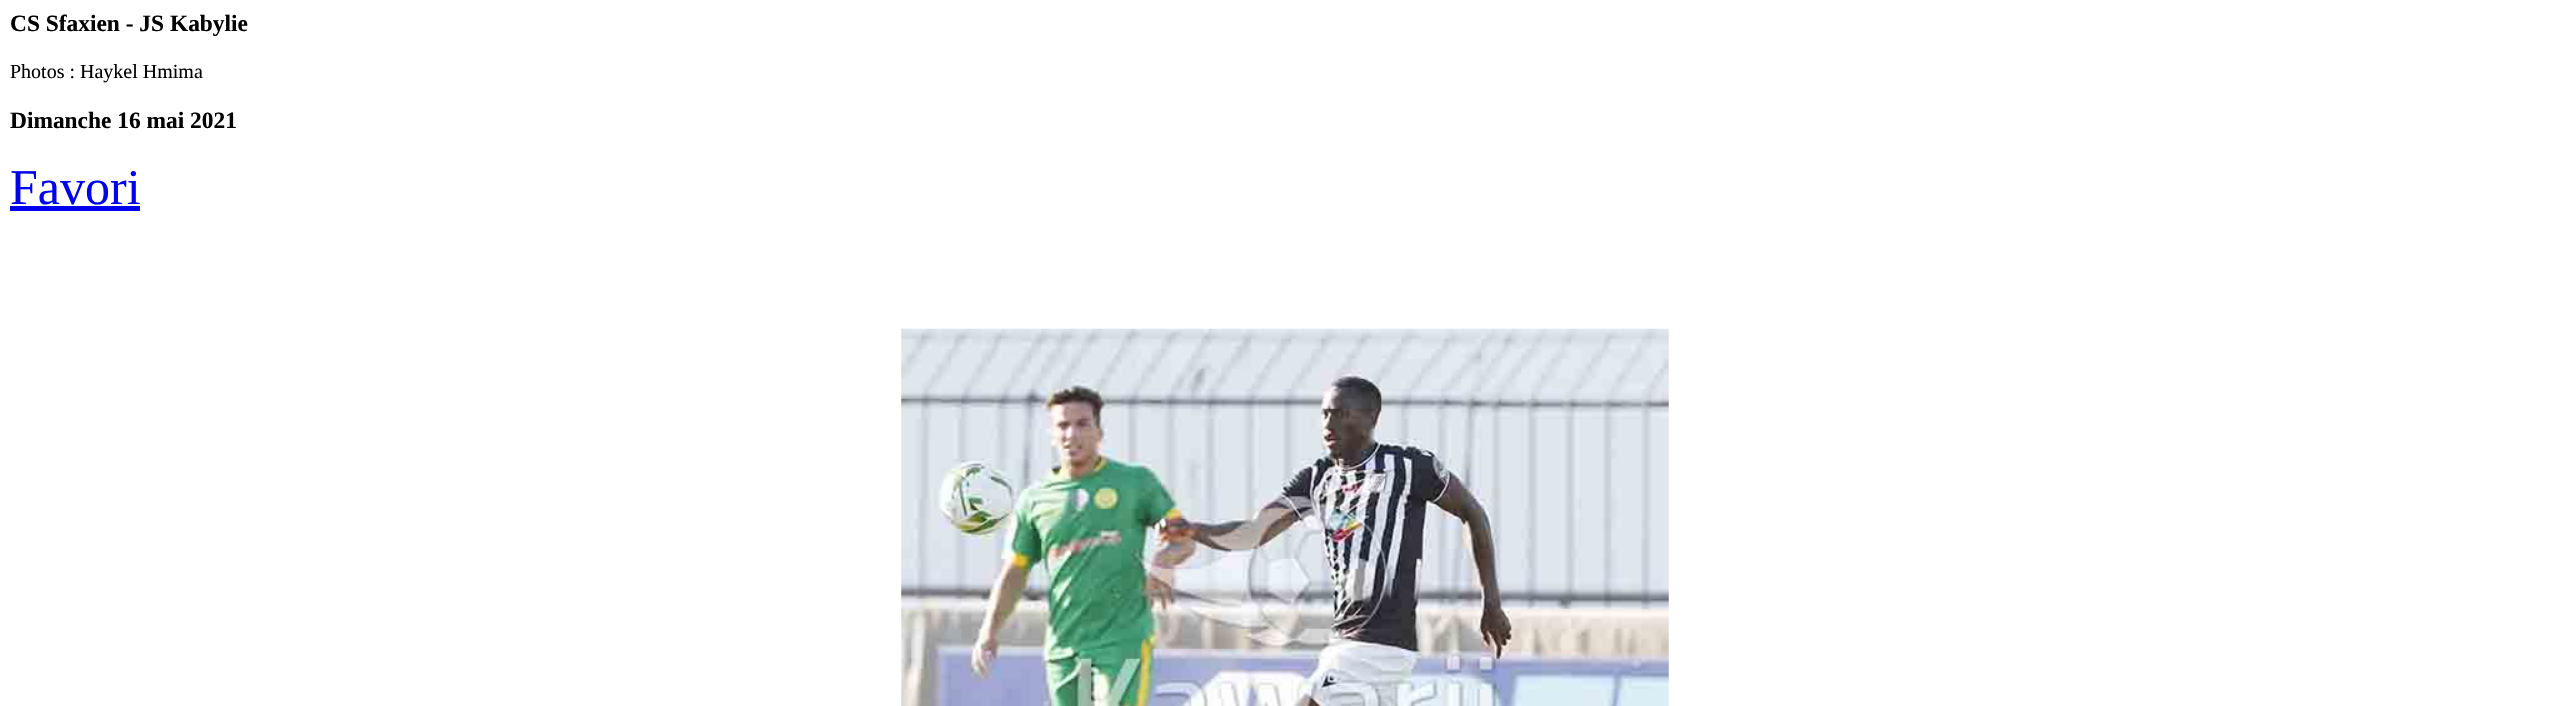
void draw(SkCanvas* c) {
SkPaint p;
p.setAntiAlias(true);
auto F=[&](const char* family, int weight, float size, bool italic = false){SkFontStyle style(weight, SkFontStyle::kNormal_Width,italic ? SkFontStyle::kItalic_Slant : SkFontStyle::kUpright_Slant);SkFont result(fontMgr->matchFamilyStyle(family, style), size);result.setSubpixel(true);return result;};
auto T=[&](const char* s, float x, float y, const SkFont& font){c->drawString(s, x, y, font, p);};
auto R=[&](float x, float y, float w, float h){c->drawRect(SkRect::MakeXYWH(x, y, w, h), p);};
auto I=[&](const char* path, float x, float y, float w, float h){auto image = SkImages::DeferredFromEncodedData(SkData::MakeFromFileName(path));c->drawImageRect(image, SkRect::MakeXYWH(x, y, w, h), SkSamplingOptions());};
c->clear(0xffffffff);
auto f1 = F("Liberation Serif",700,23.4);
p.setColor(0xff000000);
T("CS Sfaxien - JS Kabylie",10,31,f1);
auto f2 = F("Liberation Serif",400,20);
T("Photos : Haykel Hmima",10,78,f2);
T("Dimanche 16 mai 2021",10,128,f1);
auto f3 = F("Liberation Serif",400,50);
p.setColor(0xff0000ee);
T("Favori",10,204,f3);
R(10,206,130,5);
I("1.png",901,328,768,378);
}
